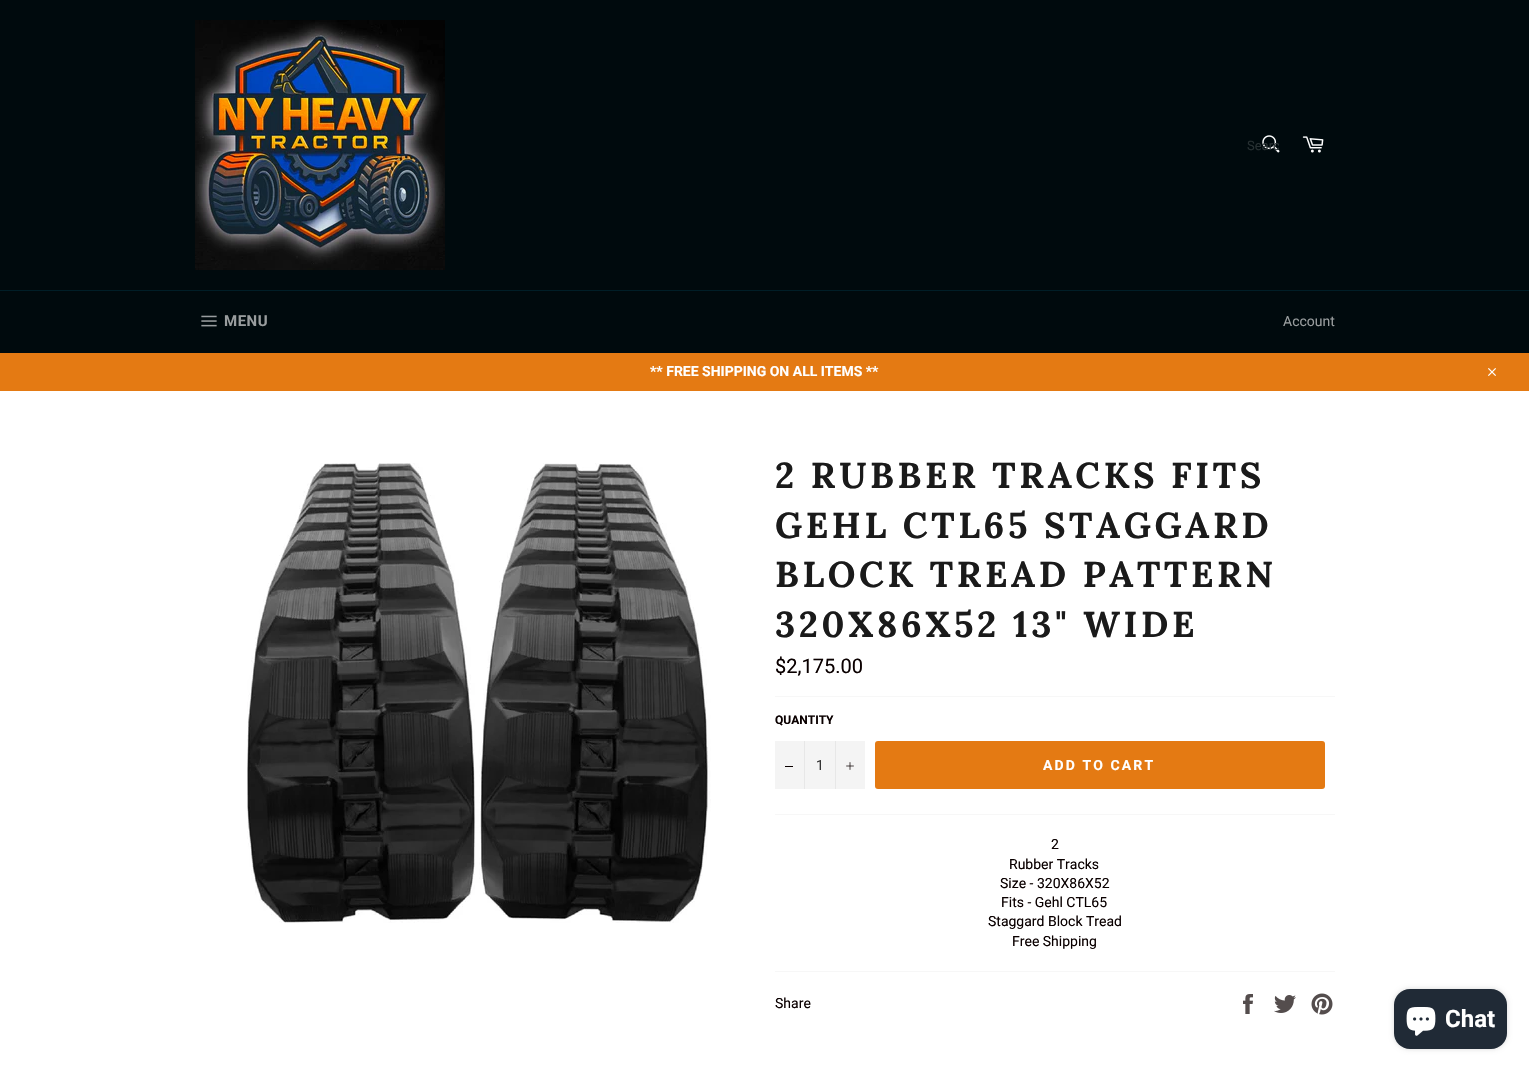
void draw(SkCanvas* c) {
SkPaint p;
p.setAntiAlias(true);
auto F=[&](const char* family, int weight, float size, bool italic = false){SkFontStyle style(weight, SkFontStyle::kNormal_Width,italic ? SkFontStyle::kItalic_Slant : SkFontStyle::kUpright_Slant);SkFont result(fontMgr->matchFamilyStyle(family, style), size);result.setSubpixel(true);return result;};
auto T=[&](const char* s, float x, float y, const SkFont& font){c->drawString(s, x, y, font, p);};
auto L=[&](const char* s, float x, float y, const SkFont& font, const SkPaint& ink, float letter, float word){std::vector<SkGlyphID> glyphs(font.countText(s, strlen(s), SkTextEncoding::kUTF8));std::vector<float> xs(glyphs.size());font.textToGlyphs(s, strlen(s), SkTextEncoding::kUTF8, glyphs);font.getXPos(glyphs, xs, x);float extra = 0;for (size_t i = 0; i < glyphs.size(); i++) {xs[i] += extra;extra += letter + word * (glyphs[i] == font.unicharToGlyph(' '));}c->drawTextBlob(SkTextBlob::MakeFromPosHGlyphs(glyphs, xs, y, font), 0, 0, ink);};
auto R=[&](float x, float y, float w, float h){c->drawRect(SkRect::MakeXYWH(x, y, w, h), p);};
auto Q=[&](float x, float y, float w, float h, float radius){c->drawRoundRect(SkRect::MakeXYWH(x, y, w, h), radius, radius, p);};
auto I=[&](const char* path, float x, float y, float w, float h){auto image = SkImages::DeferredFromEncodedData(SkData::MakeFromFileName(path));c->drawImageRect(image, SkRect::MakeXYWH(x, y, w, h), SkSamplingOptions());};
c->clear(0xff000a0d);
I("1.png",195,20,250,250);
I("2.png",1262,135,18,18);
c->save();
c->clipRect(SkRect::MakeXYWH(1247,138,32,15));
auto f1 = F("Roboto",400,13);
p.setColor(0xff273032);
T("Searc",1247,150,f1);
c->restore();
I("3.png",1302,136,22,17);
p.setColor(0xff001e27);
R(0,290,1529,1);
I("4.png",201,315,16,12);
auto f2 = F("Roboto",700,15);
p.setColor(0xff999d9e);
L("MENU",224,326,f2,p,.5,0);
auto f3 = F("Roboto",400,14);
T("Account",1283,326,f3);
p.setColor(0xffe47a13);
R(0,353,1529,38);
auto f4 = F("Roboto",700,14);
p.setColor(0xffffffff);
T("** FREE SHIPPING ON ALL ITEMS **",650,376,f4);
I("5.png",1488,368,8,8);
R(0,391,1529,679);
I("6.png",247,463,464,460);
auto f5 = F("Lora",700,36);
p.setColor(0xff1a1a1a);
L("2 RUBBER TRACKS FITS",775,488,f5,p,3.6,0);
L("GEHL CTL65 STAGGARD",775,538,f5,p,3.6,0);
L("BLOCK TREAD PATTERN",775,587,f5,p,3.6,0);
L("320X86X52 13\" WIDE",775,637,f5,p,3.6,0);
auto f6 = F("Roboto",400,20);
p.setColor(0xff0a0000);
T("$2,175.00",775,673,f6);
p.setColor(0xfff7f7f7);
R(775,696,560,1);
auto f7 = F("Roboto",700,12);
p.setColor(0xff0a0000);
T("QUANTITY",775,724,f7);
p.setColor(0xfff4f4f4);
R(775,741,90,48);
p.setColor(0xffe7e7e7);
R(804,741,1,48);
p.setColor(0xff0a0000);
R(785,766,8,1);
p.setColor(0xff333333);
T("1",816,770,f3);
p.setColor(0xffe7e7e7);
R(835,741,1,48);
I("7.png",846,762,8,8);
p.setColor(0xffe47a13);
Q(875,741,450,48,3);
p.setColor(0xffffffff);
L("ADD TO CART",1043,770,f4,p,2.1,0);
p.setColor(0xfff7f7f7);
R(775,814,560,1);
p.setColor(0xff0a0000);
T("2",1051,849,f3);
T("Rubber Tracks",1009,869,f3);
T("Size - 320X86X52",1000,888,f3);
T("Fits - Gehl CTL65",1001,907,f3);
T("Staggard Block Tread",988,926,f3);
T("Free Shipping",1012,946,f3);
p.setColor(0xfff7f7f7);
R(775,971,560,1);
p.setColor(0xff0a0000);
T("Share",775,1008,f3);
I("8.png",1243,994,10,20);
I("9.png",1274,995,22,18);
I("10.png",1311,993,22,22);
p.setColor(0x26000000);
p.setMaskFilter(SkMaskFilter::MakeBlur(kNormal_SkBlurStyle, 2.5));
c->drawRoundRect(SkRect::MakeXYWH(1394,989,113,60),16,16,p);
p.setMaskFilter(nullptr);
p.setColor(0xff202a36);
Q(1394,989,113,60,16);
I("11.png",1406,1007,30,29);
auto f8 = F("Roboto",700,24);
p.setColor(0xffffffff);
T("Chat",1445,1027,f8);
}
